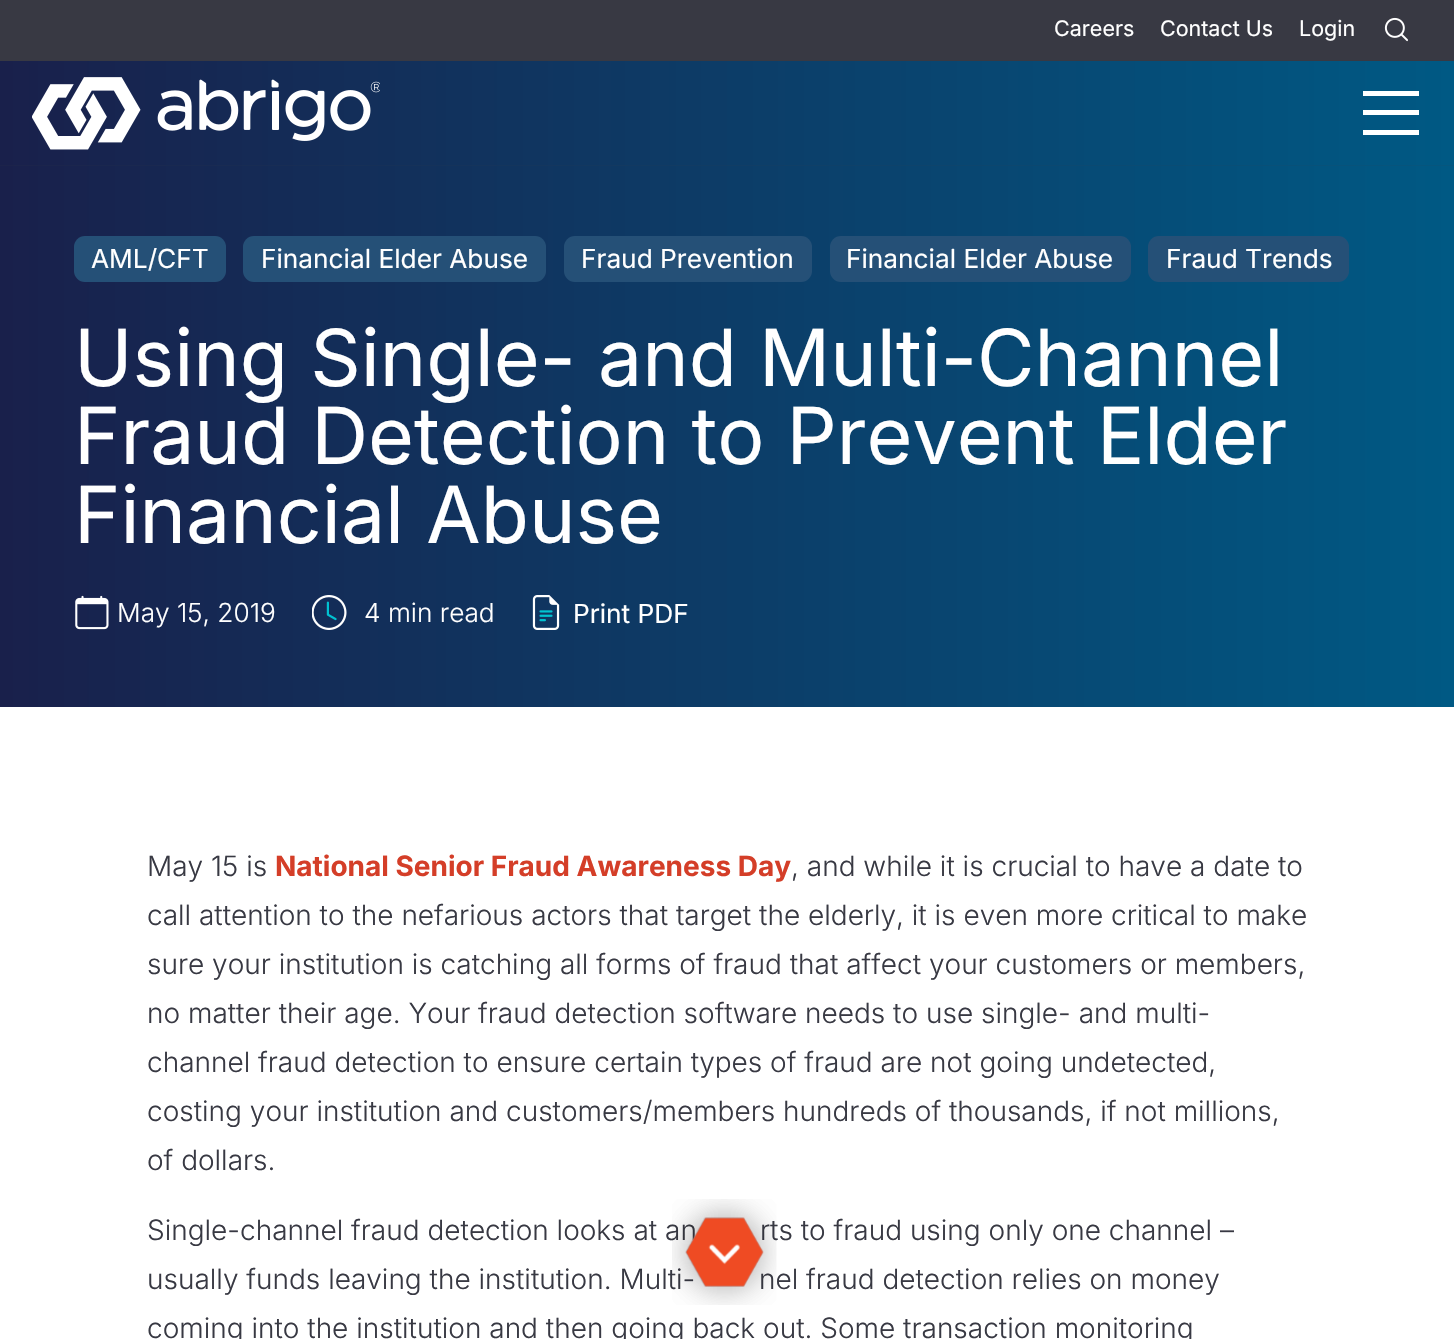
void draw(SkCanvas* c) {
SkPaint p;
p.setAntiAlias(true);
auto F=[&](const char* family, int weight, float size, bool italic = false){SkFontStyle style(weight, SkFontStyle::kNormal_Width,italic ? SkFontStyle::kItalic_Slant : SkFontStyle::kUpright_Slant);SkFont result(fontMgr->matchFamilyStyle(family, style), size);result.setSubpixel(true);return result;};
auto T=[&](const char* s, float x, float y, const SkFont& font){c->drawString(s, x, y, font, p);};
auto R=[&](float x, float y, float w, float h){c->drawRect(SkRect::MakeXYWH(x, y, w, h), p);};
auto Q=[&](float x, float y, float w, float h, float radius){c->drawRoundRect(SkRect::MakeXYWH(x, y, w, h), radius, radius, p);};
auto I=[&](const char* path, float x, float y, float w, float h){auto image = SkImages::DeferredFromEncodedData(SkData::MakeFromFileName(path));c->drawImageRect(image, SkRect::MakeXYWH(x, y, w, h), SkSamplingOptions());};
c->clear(0xffffffff);
p.setColor(0xff383943);
R(0,0,1454,61);
auto f1 = F("Inter",400,21.5);
p.setColor(0xffffffff);
T("Careers",1054,36,f1);
T("Contact Us",1160,36,f1);
T("Login",1299,36,f1);
I("1.png",1384,17,24,25);
{
const SkColor colors[] = {0xff19204b,0xff005984};
const float stops[] = {0,1};
const SkPoint ends[] = {{0,113}, {1454,113}};
p.setShader(SkGradientShader::MakeLinear(ends, colors, stops, 2, SkTileMode::kClamp));
p.setAlpha(255);
}
R(0,61,1454,104);
{
const SkColor colors[] = {0xff1c234a,0xff06567e};
const float stops[] = {0,1};
const SkPoint ends[] = {{0,113}, {1454,113}};
p.setShader(SkGradientShader::MakeLinear(ends, colors, stops, 2, SkTileMode::kClamp));
p.setAlpha(255);
}
R(0,165,1454,1);
I("2.png",32,77,348,73);
p.setShader(nullptr);
p.setColor(0xffffffff);
R(1363,91,56,5);
R(1363,130,56,5);
R(1363,110,56,5);
{
const SkColor colors[] = {0xff19204b,0xff005984};
const float stops[] = {0,1};
const SkPoint ends[] = {{0,437}, {1454,437}};
p.setShader(SkGradientShader::MakeLinear(ends, colors, stops, 2, SkTileMode::kClamp));
p.setAlpha(255);
}
R(0,166,1454,541);
p.setShader(nullptr);
p.setColor(0xff255077);
Q(74,236,152,46,11);
auto f2 = F("Inter",400,26.25);
p.setColor(0xffffffff);
T("AML/CFT",91,268,f2);
p.setColor(0xff255077);
Q(243,236,303,46,11);
p.setColor(0xffffffff);
T("Financial Elder Abuse",261,268,f2);
p.setColor(0xff255077);
Q(564,236,248,46,11);
p.setColor(0xffffffff);
T("Fraud Prevention",581,268,f2);
p.setColor(0xff255077);
Q(830,236,301,46,11);
p.setColor(0xffffffff);
T("Financial Elder Abuse",846,268,f2);
p.setColor(0xff255077);
Q(1148,236,201,46,11);
p.setColor(0xffffffff);
T("Fraud Trends",1166,268,f2);
auto f3 = F("Inter",400,78.75);
T("Using Single- and Multi-Channel",74,386,f3);
T("Fraud Detection to Prevent Elder",74,464,f3);
T("Financial Abuse",74,543,f3);
I("3.png",75,595,34,35);
auto f4 = F("Inter",300,26.25);
T("May 15, 2019",117,622,f4);
I("4.png",312,595,35,35);
T("4 min read",364,622,f4);
I("5.png",532,595,28,35);
T("Print PDF",573,623,f2);
auto f5 = F("Inter",300,28);
p.setColor(0xff383943);
T("May 15 is",147,876,f5);
auto f6 = F("Inter",700,28);
p.setColor(0xffd43e28);
T("National Senior Fraud Awareness Day",275,876,f6);
p.setColor(0xff383943);
T(", and while it is crucial to have a date to",791,876,f5);
T("call attention to the nefarious actors that target the elderly, it is even more critical to make",147,925,f5);
T("sure your institution is catching all forms of fraud that affect your customers or members,",147,974,f5);
T("no matter their age. Your fraud detection software needs to use single- and multi-",147,1023,f5);
T("channel fraud detection to ensure certain types of fraud are not going undetected,",147,1072,f5);
T("costing your institution and customers/members hundreds of thousands, if not millions,",147,1121,f5);
T("of dollars.",147,1170,f5);
T("Single-channel fraud detection looks at an",147,1240,f5);
T("rts to fraud using only one channel –",760,1240,f5);
T("usually funds leaving the institution. Multi-",147,1289,f5);
T("nel fraud detection relies on money",759,1289,f5);
T("coming into the institution and then going back out. Some transaction monitoring",147,1338,f5);
I("6.png",672,1199,104,106);
I("7.png",672,1199,105,106);
}
